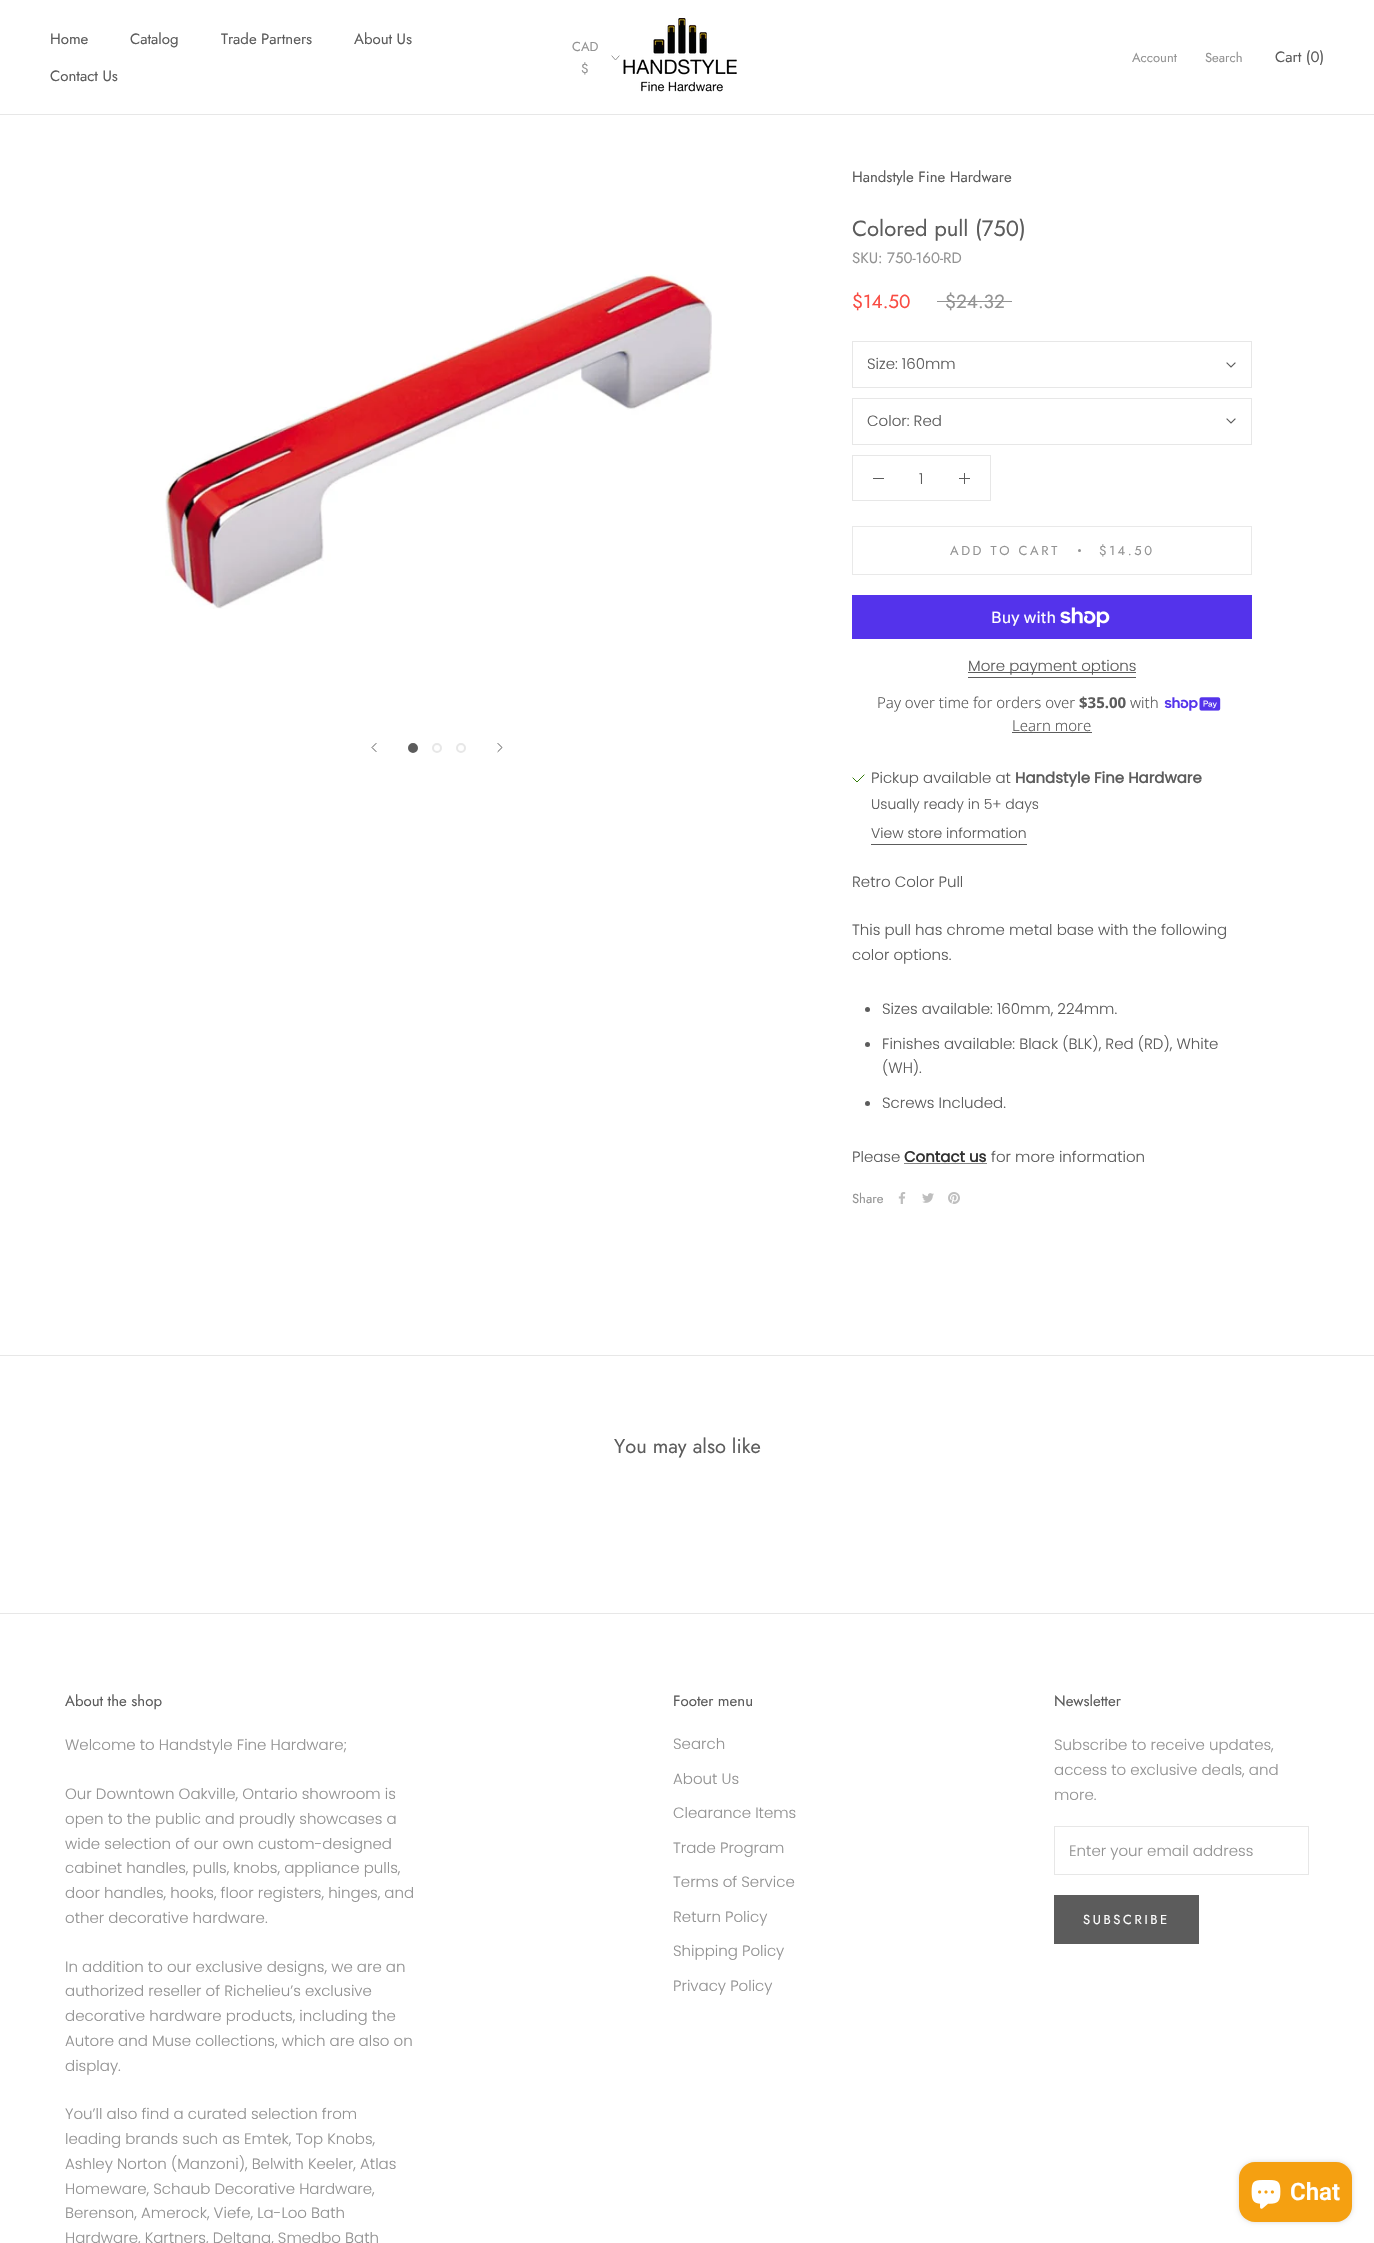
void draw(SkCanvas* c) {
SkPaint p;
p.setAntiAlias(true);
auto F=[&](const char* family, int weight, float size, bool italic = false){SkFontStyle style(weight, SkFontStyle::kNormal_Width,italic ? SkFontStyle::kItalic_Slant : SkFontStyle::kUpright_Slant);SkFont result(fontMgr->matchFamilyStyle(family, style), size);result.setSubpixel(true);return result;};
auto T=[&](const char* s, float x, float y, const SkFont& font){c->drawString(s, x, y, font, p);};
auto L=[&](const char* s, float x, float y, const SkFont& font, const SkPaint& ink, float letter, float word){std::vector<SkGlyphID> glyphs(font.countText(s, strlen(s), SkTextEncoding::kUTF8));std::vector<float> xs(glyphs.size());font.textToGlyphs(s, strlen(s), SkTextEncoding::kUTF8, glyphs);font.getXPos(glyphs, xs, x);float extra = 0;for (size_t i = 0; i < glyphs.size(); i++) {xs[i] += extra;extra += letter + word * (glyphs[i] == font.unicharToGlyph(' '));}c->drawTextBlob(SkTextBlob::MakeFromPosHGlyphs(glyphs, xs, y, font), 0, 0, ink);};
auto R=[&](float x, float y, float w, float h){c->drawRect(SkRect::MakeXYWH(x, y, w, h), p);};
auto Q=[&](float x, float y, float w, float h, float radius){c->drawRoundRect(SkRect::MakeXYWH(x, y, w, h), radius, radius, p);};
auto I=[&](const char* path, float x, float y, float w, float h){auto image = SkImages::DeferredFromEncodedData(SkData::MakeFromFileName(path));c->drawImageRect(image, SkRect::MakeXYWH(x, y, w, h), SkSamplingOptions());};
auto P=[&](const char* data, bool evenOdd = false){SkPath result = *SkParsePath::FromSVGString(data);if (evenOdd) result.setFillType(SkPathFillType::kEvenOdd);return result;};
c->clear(0xffffffff);
p.setColor(0xffe7e7e7);
R(0,114,1374,1);
auto f1 = F("Jost",400,15);
p.setColor(0xff5c5c5c);
T("Home",50,44,f1);
T("Catalog",130,44,f1);
T("Trade Partners",221,44,f1);
T("About Us",354,44,f1);
T("Contact Us",50,81,f1);
auto f2 = F("Jost",400,13);
p.setColor(0xff939393);
T("CAD",572,51,f2);
p.setStroke(true);
p.setStrokeWidth(1);
p.setStrokeCap(SkPaint::kSquare_Cap);
c->drawPath(P("M619 56l-3.5 4l-3.5-4"),p);
p.setStroke(false);
T("$",581,73,f2);
I("1.png",623,18,114,74);
T("Account",1132,62,f2);
T("Search",1205,62,f2);
p.setColor(0xff5c5c5c);
T("Cart (0)",1275,62,f1);
I("2.png",165,274,547,335);
p.setStroke(true);
c->drawPath(P("M376 751.5l-4-4l4-4"),p);
p.setStroke(false);
c->drawCircle(413,748,4,p);
p.setStroke(true);
p.setStrokeWidth(2);
p.setStrokeCap(SkPaint::kButt_Cap);
c->drawCircle(413,748,4,p);
p.setColor(0xffe7e7e7);
c->drawCircle(437,748,4,p);
c->drawCircle(461,748,4,p);
p.setStrokeWidth(1);
p.setStrokeCap(SkPaint::kSquare_Cap);
p.setColor(0xff5c5c5c);
c->drawPath(P("M498 751.5l4-4l-4-4"),p);
p.setStroke(false);
T("Handstyle Fine Hardware",852,182,f1);
auto f3 = F("Jost",400,22);
T("Colored pull (750)",852,236,f3);
p.setColor(0xff939393);
T("SKU: 750-160-RD",852,263,f1);
auto f4 = F("Jost",400,19);
p.setColor(0xfff94c43);
T("$14.50",852,308,f4);
p.setColor(0xff939393);
T("$24.32",945,308,f4);
R(937,301,75,1);
p.setStroke(true);
p.setStrokeCap(SkPaint::kButt_Cap);
p.setColor(0xffe7e7e7);
c->drawRect(SkRect::MakeXYWH(852.5,341.5,399,46),p);
auto f5 = F("Poppins",300,15);
p.setStroke(false);
p.setColor(0xff5c5c5c);
T("Size: 160mm",867,369,f5);
p.setStroke(true);
p.setStrokeWidth(1.1);
p.setStrokeCap(SkPaint::kSquare_Cap);
c->drawPath(P("M1235 363l-4 4l-4-4"),p);
p.setStrokeWidth(1);
p.setStrokeCap(SkPaint::kButt_Cap);
p.setColor(0xffe7e7e7);
c->drawRect(SkRect::MakeXYWH(852.5,398.5,399,46),p);
p.setStroke(false);
p.setColor(0xff5c5c5c);
T("Color: Red",867,426,f5);
p.setStroke(true);
p.setStrokeWidth(1.1);
p.setStrokeCap(SkPaint::kSquare_Cap);
c->drawPath(P("M1235 419l-4 4l-4-4"),p);
p.setStrokeWidth(1);
p.setStrokeCap(SkPaint::kButt_Cap);
p.setColor(0xffe7e7e7);
c->drawRect(SkRect::MakeXYWH(852.5,455.5,138,45),p);
p.setStroke(false);
p.setColor(0xff5c5c5c);
R(873,478,11,1);
T("1",919,484,f5);
R(964,473,1,11);
R(959,478,11,1);
p.setStroke(true);
p.setColor(0xffe9e9e9);
c->drawRect(SkRect::MakeXYWH(852.5,526.5,399,48),p);
p.setStroke(false);
p.setColor(0xff939393);
L("ADD TO CART",950,555,f2,p,2.6,0);
c->drawCircle(1079.5,550.5,1.5,p);
L("$14.50",1099,555,f2,p,2.6,0);
p.setColor(0xff5433eb);
R(852,595,400,44);
auto f6 = F("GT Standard",400,16);
p.setColor(0xffffffff);
T("Buy with",991,623,f6);
I("3.png",1060,607,50,20);
p.setColor(0xff5c5c5c);
R(968,672,168,1);
T("More payment options",968,671,f5);
R(968,677,168,1);
auto f7 = F("Noto Sans",300,15);
T("Pay over time for orders over",877,708,f7);
auto f8 = F("Noto Sans",700,15);
T("$35.00",1079,708,f8);
T("with",1130,708,f7);
I("4.png",1164,697,57,14);
T("Learn more",1012,731,f7);
R(1012,732,80,1);
p.setStroke(true);
p.setStrokeCap(SkPaint::kSquare_Cap);
p.setColor(0xff307a07);
c->drawPath(P("M853 778l4 4l7-7"),p);
p.setStroke(false);
p.setColor(0xff5c5c5c);
T("Pickup available at",871,783,f5);
auto f9 = F("Poppins",700,15);
T("Handstyle Fine Hardware",1015,783,f9);
auto f10 = F("Poppins",300,14);
T("Usually ready in 5+ days",871,809,f10);
T("View store information",871,838,f10);
R(871,844,156,1);
T("Retro Color Pull",852,887,f5);
T("This pull has chrome metal base with the following",852,935,f5);
T("color options.",852,960,f5);
c->drawCircle(867.5,1009.5,2.5,p);
T("Sizes available: 160mm, 224mm.",882,1014,f5);
c->drawCircle(867.5,1044.5,2.5,p);
T("Finishes available: Black (BLK), Red (RD), White",882,1049,f5);
T("(WH).",882,1073,f5);
c->drawCircle(867.5,1103.5,2.5,p);
T("Screws Included.",882,1108,f5);
T("Please",852,1162,f5);
p.setColor(0xff323232);
T("Contact us",904,1162,f9);
p.setColor(0xff848484);
R(904,1163,83,1);
p.setColor(0xff5c5c5c);
T("for more information",991,1162,f5);
p.setColor(0xff939393);
T("Share",852,1203,f2);
I("5.png",898,1192,8,12);
I("6.png",922,1193,12,10);
I("7.png",948,1192,12,12);
p.setColor(0xffe7e7e7);
R(0,1355,1374,1);
auto f11 = F("Jost",400,20);
p.setColor(0xff5c5c5c);
T("You may also like",614,1453,f11);
p.setColor(0xffe7e7e7);
R(0,1613,1374,1);
p.setColor(0xff5c5c5c);
T("About the shop",65,1706,f1);
p.setColor(0xff939393);
T("Welcome to Handstyle Fine Hardware;",65,1750,f5);
T("Our Downtown Oakville, Ontario showroom is",65,1799,f5);
T("open to the public and proudly showcases a",65,1824,f5);
T("wide selection of our own custom-designed",65,1849,f5);
T("cabinet handles, pulls, knobs, appliance pulls,",65,1873,f5);
T("door handles, hooks, floor registers, hinges, and",65,1898,f5);
T("other decorative hardware.",65,1923,f5);
T("In addition to our exclusive designs, we are an",65,1972,f5);
T("authorized reseller of Richelieu’s exclusive",65,1996,f5);
T("decorative hardware products, including the",65,2021,f5);
T("Autore and Muse collections, which are also on",65,2046,f5);
T("display.",65,2071,f5);
T("You’ll also find a curated selection from",65,2119,f5);
T("leading brands such as Emtek, Top Knobs,",65,2144,f5);
T("Ashley Norton (Manzoni), Belwith Keeler, Atlas",65,2169,f5);
T("Homeware, Schaub Decorative Hardware,",65,2194,f5);
T("Berenson, Amerock, Viefe, La-Loo Bath",65,2218,f5);
T("Hardware, Kartners, Deltana, Smedbo Bath",65,2243,f5);
p.setColor(0xff5c5c5c);
T("Footer menu",673,1706,f1);
p.setColor(0xff939393);
T("Search",673,1749,f5);
T("About Us",673,1784,f5);
T("Clearance Items",673,1818,f5);
T("Trade Program",673,1853,f5);
T("Terms of Service",673,1887,f5);
T("Return Policy",673,1922,f5);
T("Shipping Policy",673,1956,f5);
T("Privacy Policy",673,1991,f5);
p.setColor(0xff5c5c5c);
T("Newsletter",1054,1706,f1);
p.setColor(0xff939393);
T("Subscribe to receive updates,",1054,1750,f5);
T("access to exclusive deals, and",1054,1775,f5);
T("more.",1054,1800,f5);
p.setStroke(true);
p.setStrokeCap(SkPaint::kButt_Cap);
p.setColor(0xffe7e7e7);
c->drawRect(SkRect::MakeXYWH(1054.5,1826.5,254,48),p);
p.setStroke(false);
p.setColor(0xff939393);
T("Enter your email address",1069,1856,f5);
p.setStroke(true);
p.setColor(0xff5c5c5c);
c->drawRect(SkRect::MakeXYWH(1054.5,1895.5,144,48),p);
p.setStroke(false);
R(1055,1896,143,47);
p.setColor(0xffffffff);
L("SUBSCRIBE",1083,1924,f2,p,2.6,0);
p.setColor(0x26000000);
p.setMaskFilter(SkMaskFilter::MakeBlur(kNormal_SkBlurStyle, 2.5));
c->drawRoundRect(SkRect::MakeXYWH(1239,2162,113,60),16,16,p);
p.setMaskFilter(nullptr);
p.setColor(0xfff5a011);
Q(1239,2162,113,60,16);
I("8.png",1251,2180,30,29);
auto f12 = F("Roboto",600,24);
p.setColor(0xffffffff);
T("Chat",1290,2200,f12);
}
